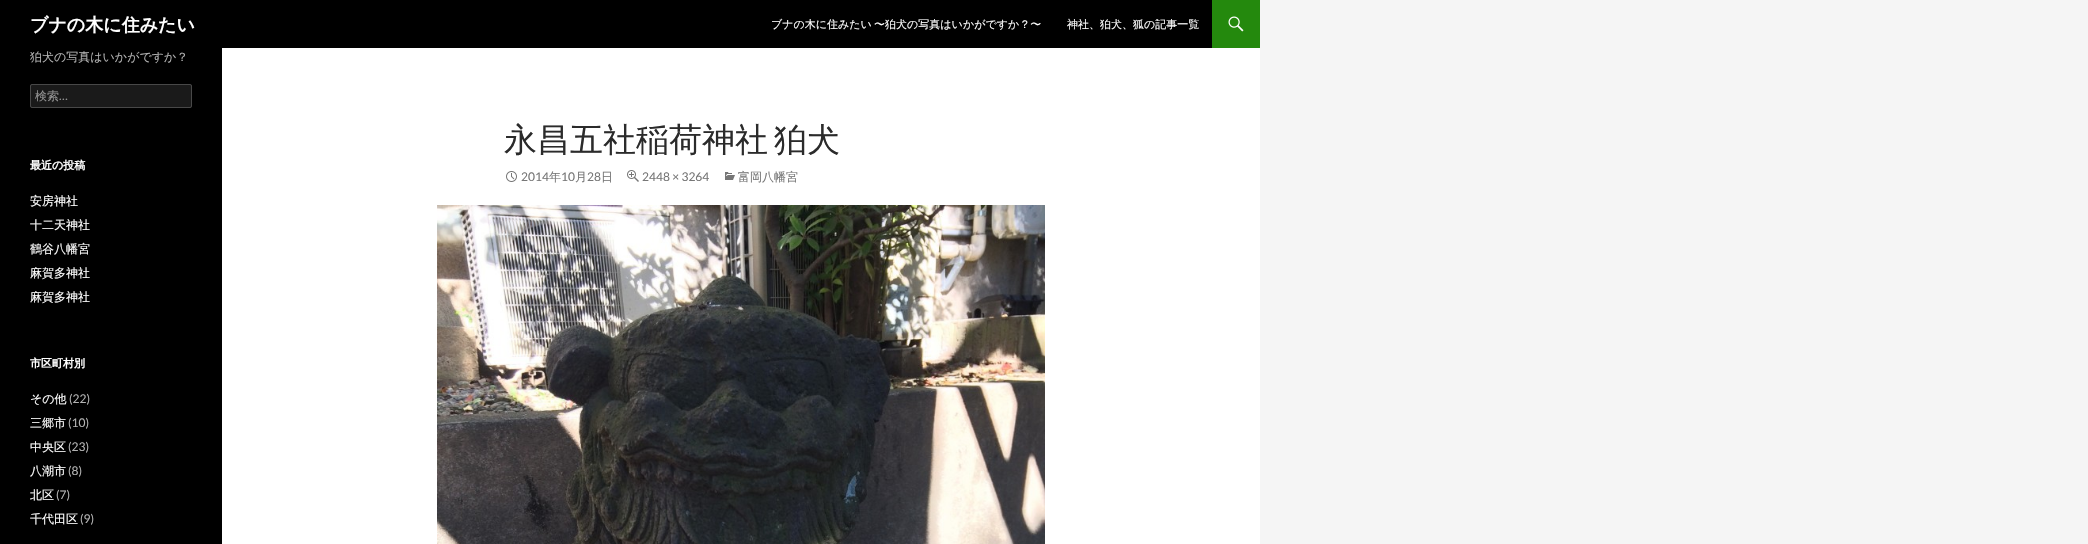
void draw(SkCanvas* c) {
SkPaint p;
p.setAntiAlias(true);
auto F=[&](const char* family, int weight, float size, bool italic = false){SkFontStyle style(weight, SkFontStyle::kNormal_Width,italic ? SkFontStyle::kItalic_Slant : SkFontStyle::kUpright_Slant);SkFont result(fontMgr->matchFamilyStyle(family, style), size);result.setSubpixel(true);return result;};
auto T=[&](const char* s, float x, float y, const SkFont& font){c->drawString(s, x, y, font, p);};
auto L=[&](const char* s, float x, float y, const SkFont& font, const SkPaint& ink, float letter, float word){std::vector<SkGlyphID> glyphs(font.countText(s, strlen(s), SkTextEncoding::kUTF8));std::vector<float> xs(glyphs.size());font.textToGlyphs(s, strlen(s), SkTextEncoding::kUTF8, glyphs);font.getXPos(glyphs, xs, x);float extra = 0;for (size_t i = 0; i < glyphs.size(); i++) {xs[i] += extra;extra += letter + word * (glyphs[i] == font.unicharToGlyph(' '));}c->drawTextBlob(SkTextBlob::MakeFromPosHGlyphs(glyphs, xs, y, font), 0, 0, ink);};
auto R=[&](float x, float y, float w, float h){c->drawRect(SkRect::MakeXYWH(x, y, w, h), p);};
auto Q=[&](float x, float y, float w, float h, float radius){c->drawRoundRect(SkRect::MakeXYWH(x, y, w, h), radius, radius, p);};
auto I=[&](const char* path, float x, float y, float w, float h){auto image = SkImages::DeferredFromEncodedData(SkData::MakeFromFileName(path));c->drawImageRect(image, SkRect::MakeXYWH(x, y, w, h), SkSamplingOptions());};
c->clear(0xfff5f5f5);
p.setColor(0xffffffff);
R(222,48,1038,496);
p.setColor(0xff000000);
R(0,0,1212,48);
auto f1 = F("WenQuanYi Zen Hei",700,18);
p.setColor(0xffffffff);
T("ブナの木に住みたい",30,31,f1);
auto f2 = F("WenQuanYi Zen Hei",500,11);
L("ブナの木に住みたい 〜狛犬の写真はいかがですか？〜",771,28,f2,p,0,-1);
T("神社、狛犬、狐の記事一覧",1067,28,f2);
p.setColor(0xff24890d);
R(1212,0,48,48);
I("1.png",1228,16,16,16);
p.setColor(0xff000000);
R(0,48,222,496);
auto f3 = F("WenQuanYi Zen Hei",500,12);
p.setColor(0xffb3b3b3);
T("狛犬の写真はいかがですか？",30,61,f3);
p.setColor(0xff1a1a1a);
Q(30,84,162,24,2);
p.setStroke(true);
p.setStrokeWidth(1);
p.setColor(0x33ffffff);
c->drawRoundRect(SkRect::MakeXYWH(30.5,84.5,161,23),1.5,1.5,p);
p.setStroke(false);
p.setColor(0xff939393);
T("検索",35,100,f3);
auto f4 = F("Lato",400,12);
T("…",59,100,f4);
auto f5 = F("WenQuanYi Zen Hei",700,11);
p.setColor(0xffffffff);
T("最近の投稿",30,169,f5);
T("安房神社",30,205,f3);
T("十二天神社",30,229,f3);
T("鶴谷八幡宮",30,253,f3);
T("麻賀多神社",30,277,f3);
T("麻賀多神社",30,301,f3);
T("市区町村別",30,367,f5);
T("その他",30,403,f3);
p.setColor(0xffb3b3b3);
T("(22)",69,403,f4);
p.setColor(0xffffffff);
T("三郷市",30,427,f3);
p.setColor(0xffb3b3b3);
T("(10)",68,427,f4);
p.setColor(0xffffffff);
T("中央区",30,451,f3);
p.setColor(0xffb3b3b3);
T("(23)",68,451,f4);
p.setColor(0xffffffff);
T("八潮市",30,475,f3);
p.setColor(0xffb3b3b3);
T("(8)",68,475,f4);
p.setColor(0xffffffff);
T("北区",30,499,f3);
p.setColor(0xffb3b3b3);
T("(7)",56,499,f4);
p.setColor(0xffffffff);
T("千代田区",30,523,f3);
p.setColor(0xffb3b3b3);
T("(9)",80,523,f4);
auto f6 = F("WenQuanYi Zen Hei",500,33);
p.setColor(0xff2b2b2b);
L("永昌五社稲荷神社 狛犬",504,151,f6,p,0,-4);
I("2.png",506,171,11,11);
p.setColor(0xff767676);
T("2014",521,181,f4);
T("年",549,181,f3);
T("10",561,181,f4);
T("月",575,181,f3);
T("28",587,181,f4);
T("日",601,181,f3);
I("3.png",627,170,12,12);
T("2448 × 3264",642,181,f4);
I("4.png",725,172,10,8);
T("富岡八幡宮",738,181,f3);
I("5.png",437,205,608,339);
}
